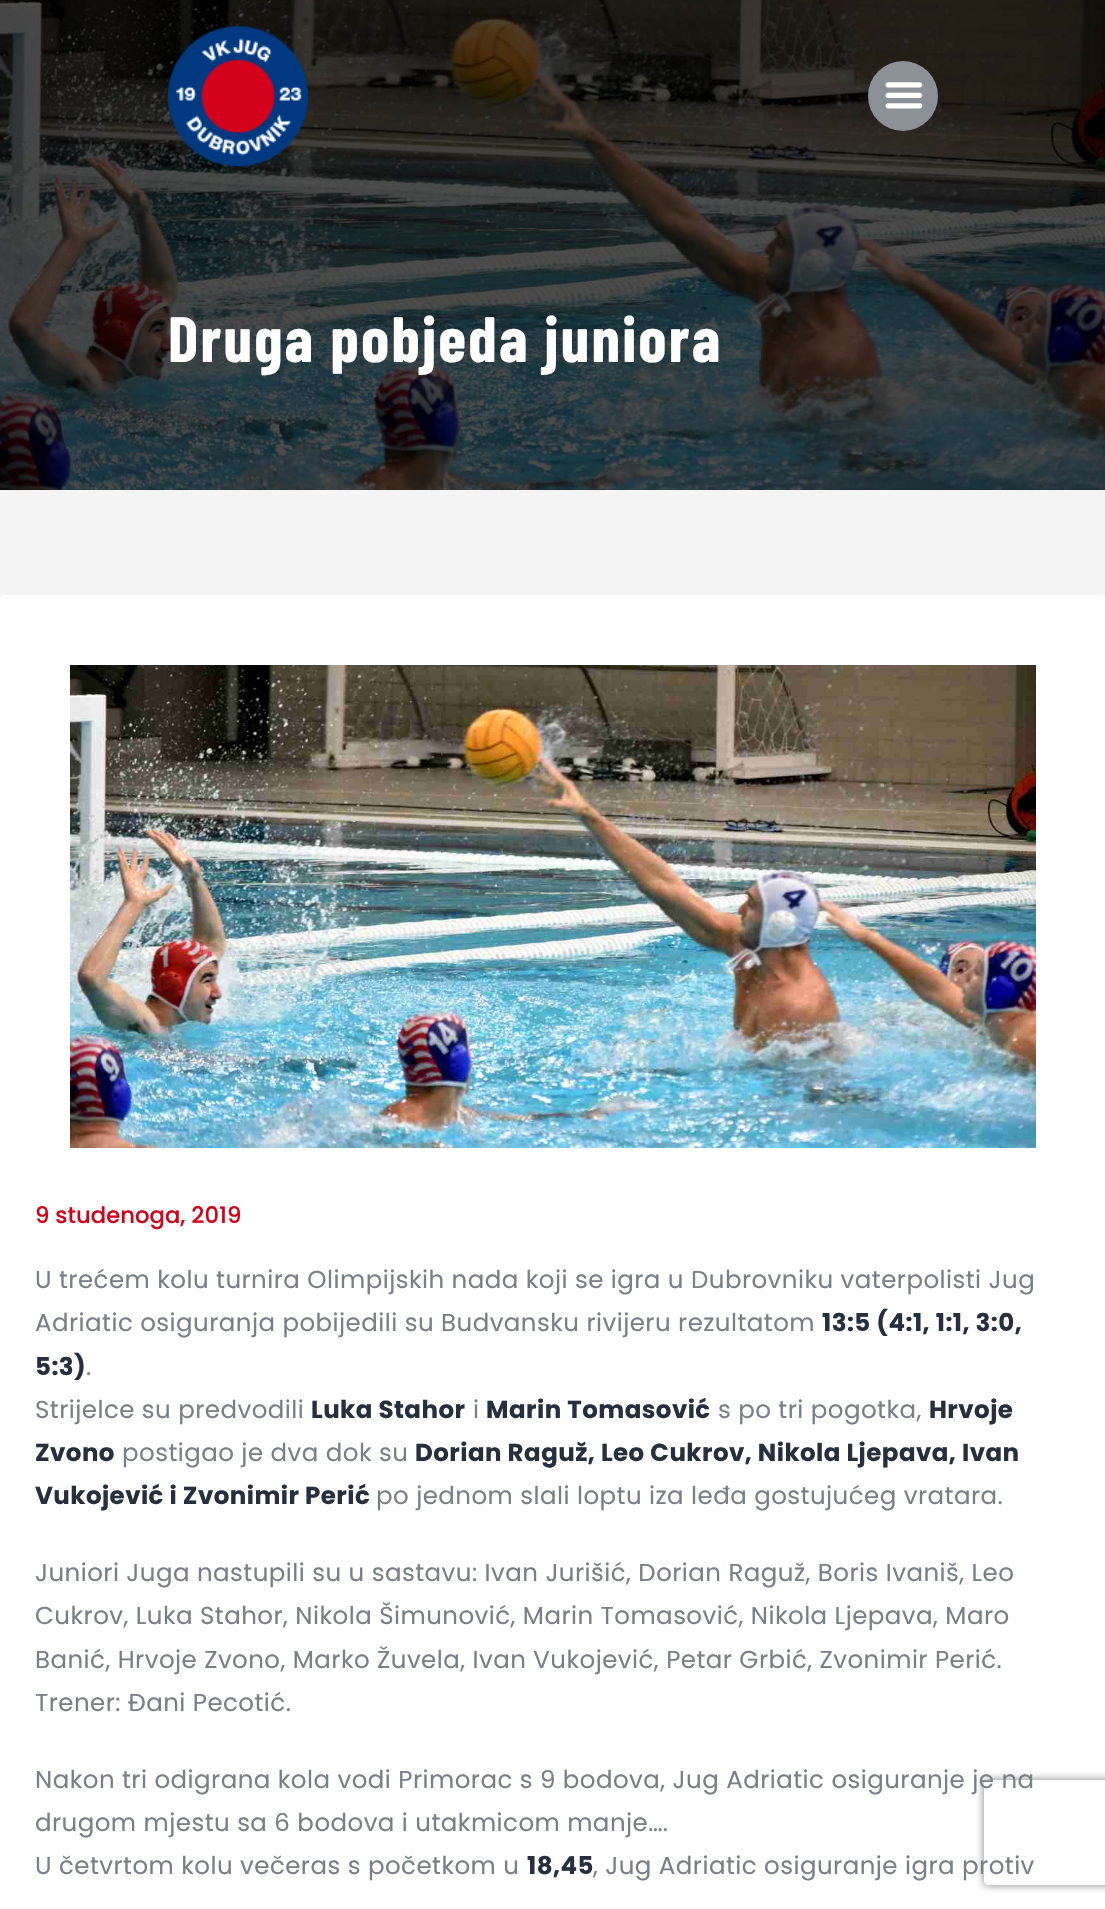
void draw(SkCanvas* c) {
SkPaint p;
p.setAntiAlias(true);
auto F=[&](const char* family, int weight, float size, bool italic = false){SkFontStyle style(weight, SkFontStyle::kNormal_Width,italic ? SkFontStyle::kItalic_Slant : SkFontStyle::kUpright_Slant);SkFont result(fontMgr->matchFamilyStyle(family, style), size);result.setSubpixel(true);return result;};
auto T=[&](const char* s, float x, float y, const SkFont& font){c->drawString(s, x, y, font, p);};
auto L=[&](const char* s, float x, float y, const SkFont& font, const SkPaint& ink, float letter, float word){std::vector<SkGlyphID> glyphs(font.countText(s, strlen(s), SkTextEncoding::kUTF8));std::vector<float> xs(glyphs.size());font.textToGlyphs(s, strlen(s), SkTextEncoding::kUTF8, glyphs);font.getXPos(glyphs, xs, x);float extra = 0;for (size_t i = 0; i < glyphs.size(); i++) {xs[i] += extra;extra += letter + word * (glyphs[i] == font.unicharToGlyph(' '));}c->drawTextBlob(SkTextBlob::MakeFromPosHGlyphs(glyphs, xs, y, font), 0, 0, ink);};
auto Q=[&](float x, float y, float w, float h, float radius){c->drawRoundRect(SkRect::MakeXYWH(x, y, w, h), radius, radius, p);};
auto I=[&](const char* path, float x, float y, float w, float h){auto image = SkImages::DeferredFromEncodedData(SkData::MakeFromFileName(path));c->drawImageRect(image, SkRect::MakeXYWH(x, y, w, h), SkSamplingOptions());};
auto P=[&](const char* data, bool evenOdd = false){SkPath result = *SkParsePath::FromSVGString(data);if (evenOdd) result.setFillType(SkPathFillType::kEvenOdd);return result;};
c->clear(0xfff4f4f4);
I("1.png",0,0,1105,490);
I("2.png",168,26,140,141);
p.setColor(0xff8c9097);
c->drawCircle(903,96,35,p);
I("3.png",885,82,38,27);
auto f1 = F("Barlow Condensed",700,63.75);
p.setColor(0xffffffff);
L("Druga pobjeda juniora",168,362,f1,p,2.25,0);
Q(0,595,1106,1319,5);
I("4.png",70,665,966,483);
auto f2 = F("Poppins",500,22.75);
p.setColor(0xffd3021c);
T("9 studenoga, 2019",35,1223,f2);
auto f3 = F("Poppins",400,24.5);
p.setColor(0xff797e87);
L("U trećem kolu turnira Olimpijskih nada koji se igra u Dubrovniku vaterpolisti Jug",35,1288,f3,p,.45,0);
L("Adriatic osiguranja pobijedili su Budvansku rivijeru rezultatom",35,1331,f3,p,.45,0);
auto f4 = F("Poppins",700,24.5);
p.setColor(0xff262f3e);
L("13:5 (4:1, 1:1, 3:0,",822,1331,f4,p,.45,0);
L("5:3)",35,1375,f4,p,.45,0);
p.setColor(0xff797e87);
L(".",86,1375,f3,p,.45,0);
L("Strijelce su predvodili",35,1418,f3,p,.45,0);
p.setColor(0xff262f3e);
L("Luka Stahor",311,1418,f4,p,.45,0);
p.setColor(0xff797e87);
L("i",473,1418,f3,p,.45,0);
p.setColor(0xff262f3e);
L("Marin Tomasović",486,1418,f4,p,.45,0);
p.setColor(0xff797e87);
L("s po tri pogotka,",718,1418,f3,p,.45,0);
p.setColor(0xff262f3e);
L("Hrvoje",929,1418,f4,p,.45,0);
L("Zvono",35,1461,f4,p,.45,0);
p.setColor(0xff797e87);
L("postigao je dva dok su",122,1461,f3,p,.45,0);
p.setColor(0xff262f3e);
L("Dorian Raguž, Leo Cukrov, Nikola Ljepava, Ivan",415,1461,f4,p,.45,0);
L("Vukojević i Zvonimir Perić",35,1504,f4,p,.45,0);
p.setColor(0xff797e87);
L("po jednom slali loptu iza leđa gostujućeg vratara.",376,1504,f3,p,.45,0);
L("Juniori Juga nastupili su u sastavu: Ivan Jurišić, Dorian Raguž, Boris Ivaniš, Leo",35,1581,f3,p,.45,0);
L("Cukrov, Luka Stahor, Nikola Šimunović, Marin Tomasović, Nikola Ljepava, Maro",35,1624,f3,p,.45,0);
L("Banić, Hrvoje Zvono, Marko Žuvela, Ivan Vukojević, Petar Grbić, Zvonimir Perić.",35,1668,f3,p,.45,0);
L("Trener: Đani Pecotić.",35,1711,f3,p,.45,0);
L("Nakon tri odigrana kola vodi Primorac s 9 bodova, Jug Adriatic osiguranje je na",35,1788,f3,p,.45,0);
L("drugom mjestu sa 6 bodova i utakmicom manje….",35,1831,f3,p,.45,0);
L("U četvrtom kolu večeras s početkom u",35,1874,f3,p,.45,0);
p.setColor(0xff262f3e);
L("18,45",527,1874,f4,p,.45,0);
p.setColor(0xff797e87);
L(", Jug Adriatic osiguranje igra protiv",593,1874,f3,p,.45,0);
c->save();
c->clipPath(P("M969 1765h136v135h-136zm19 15h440c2 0 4 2 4 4v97c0 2-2 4-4 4h-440c-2 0-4-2-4-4v-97c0-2 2-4 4-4z",true),true);
p.setColor(0xff808080);
p.setMaskFilter(SkMaskFilter::MakeBlur(kNormal_SkBlurStyle, 4.5));
c->drawRoundRect(SkRect::MakeXYWH(984,1780,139,105),4,4,p);
p.setMaskFilter(nullptr);
c->restore();
}
